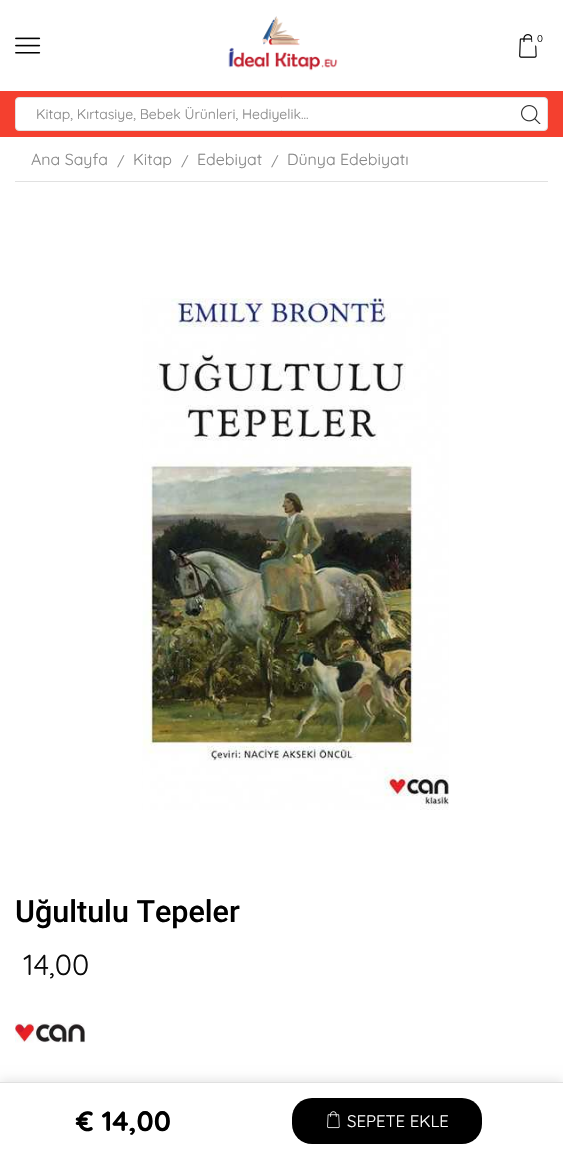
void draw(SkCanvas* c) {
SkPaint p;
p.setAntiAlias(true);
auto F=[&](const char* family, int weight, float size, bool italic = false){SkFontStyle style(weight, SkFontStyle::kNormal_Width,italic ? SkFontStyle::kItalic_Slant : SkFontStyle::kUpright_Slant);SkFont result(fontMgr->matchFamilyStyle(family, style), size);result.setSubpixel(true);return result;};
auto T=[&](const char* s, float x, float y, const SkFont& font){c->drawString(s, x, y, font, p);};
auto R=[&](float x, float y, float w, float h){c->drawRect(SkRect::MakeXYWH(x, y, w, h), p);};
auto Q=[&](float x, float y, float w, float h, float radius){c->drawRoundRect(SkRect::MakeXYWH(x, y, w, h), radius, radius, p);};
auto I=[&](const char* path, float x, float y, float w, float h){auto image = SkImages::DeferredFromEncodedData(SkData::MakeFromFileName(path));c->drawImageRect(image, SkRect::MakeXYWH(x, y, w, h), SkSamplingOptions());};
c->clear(0xffffffff);
I("1.png",15,37,26,17);
I("2.png",228,16,110,55);
I("3.png",519,34,18,24);
p.setColor(0xffffffff);
c->drawCircle(540,39,8,p);
auto f1 = F("Quicksand",400,10);
p.setColor(0xff000000);
T("0",537,42,f1);
p.setColor(0xfff4402f);
R(0,91,563,46);
p.setColor(0xffffffff);
c->drawRoundRect(SkRect::MakeXYWH(15.5,97.5,532,33),3.5,3.5,p);
p.setStroke(true);
p.setStrokeWidth(1);
p.setColor(0xffe1e1e1);
c->drawRoundRect(SkRect::MakeXYWH(15.5,97.5,532,33),3.5,3.5,p);
auto f2 = F("Quicksand",400,14);
p.setStroke(false);
p.setColor(0xff888888);
T("Kitap, Kırtasiye, Bebek Ürünleri, Hediyelik...",36,119,f2);
I("4.png",521,105,20,19);
p.setColor(0xffe1e1e1);
R(15,181,533,1);
auto f3 = F("Quicksand",400,16);
p.setColor(0xff888888);
T("Ana Sayfa",31,165,f3);
auto f4 = F("Liberation Serif",400,18,true);
T("/",118,167,f4);
T("Kitap",133,165,f3);
T("/",182,167,f4);
T("Edebiyat",197,165,f3);
T("/",272,167,f4);
T("Dünya Edebiyatı",287,165,f3);
I("5.png",142,298,307,512);
auto f5 = F("Roboto",500,30.5);
p.setColor(0xff000000);
T("Uğultulu Tepeler",15,922,f5);
auto f6 = F("Quicksand",400,29);
p.setColor(0xff0a0a0a);
T("14,00",23,975,f6);
I("6.png",15,1023,70,20);
p.setColor(0x1a000000);
p.setMaskFilter(SkMaskFilter::MakeBlur(kNormal_SkBlurStyle, 5));
c->drawRect(SkRect::MakeXYWH(0,1080,563,77),p);
p.setMaskFilter(nullptr);
p.setColor(0xffffffff);
R(0,1083,563,76);
p.setColor(0xffe0e0e0);
R(0,1082,563,1);
auto f7 = F("Quicksand",700,28);
p.setColor(0xff000000);
T("€ 14,00",76,1131,f7);
Q(292,1098,190,46,20);
I("7.png",327,1111,13,18);
auto f8 = F("Quicksand",400,16.75);
p.setColor(0xffffffff);
T("SEPETE EKLE",347,1127,f8);
}
